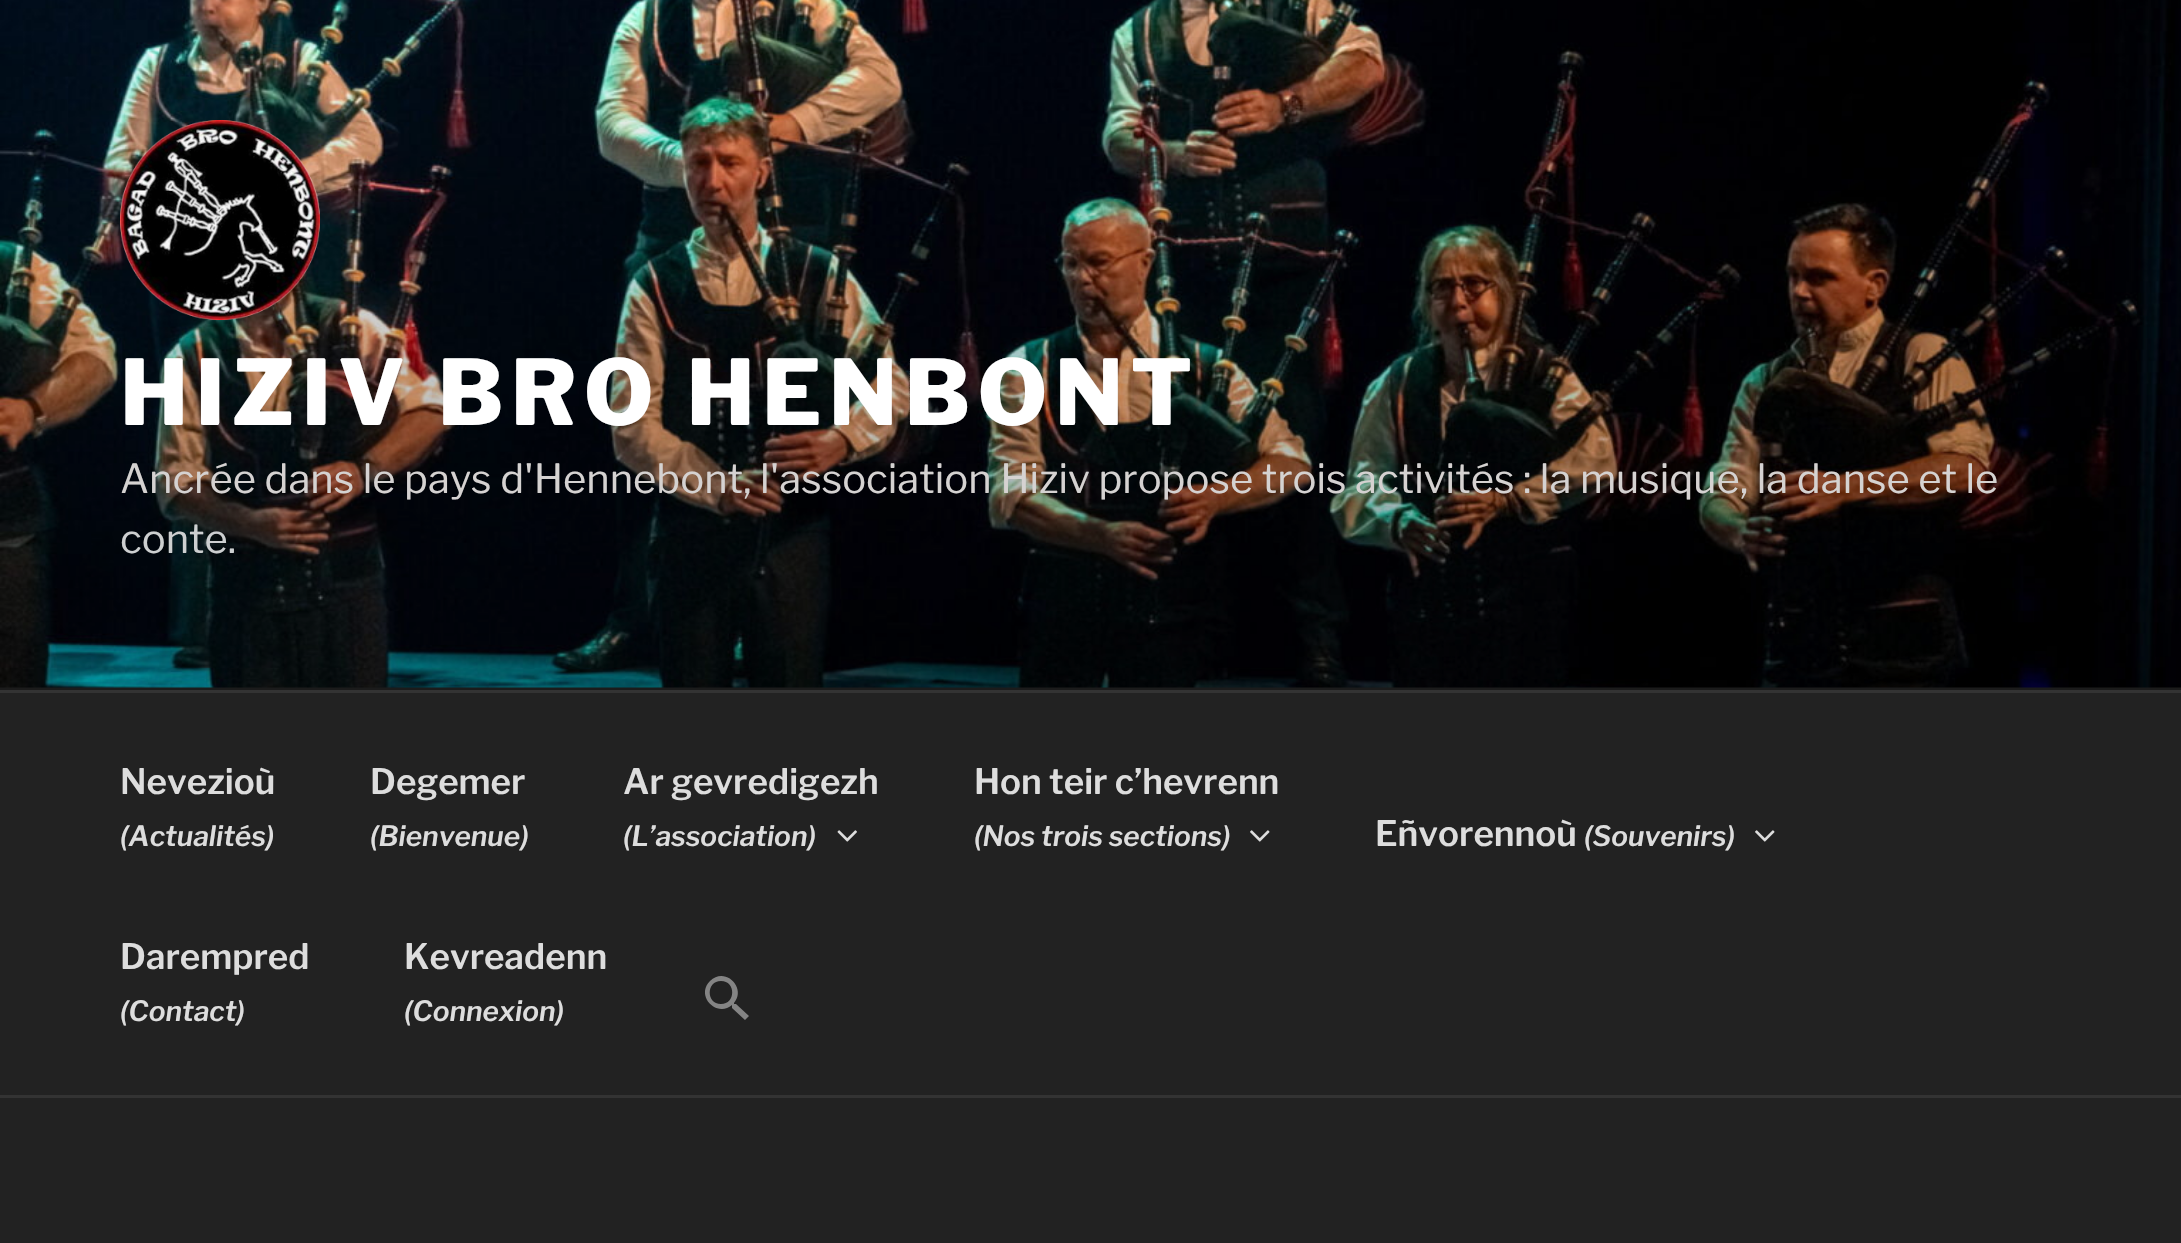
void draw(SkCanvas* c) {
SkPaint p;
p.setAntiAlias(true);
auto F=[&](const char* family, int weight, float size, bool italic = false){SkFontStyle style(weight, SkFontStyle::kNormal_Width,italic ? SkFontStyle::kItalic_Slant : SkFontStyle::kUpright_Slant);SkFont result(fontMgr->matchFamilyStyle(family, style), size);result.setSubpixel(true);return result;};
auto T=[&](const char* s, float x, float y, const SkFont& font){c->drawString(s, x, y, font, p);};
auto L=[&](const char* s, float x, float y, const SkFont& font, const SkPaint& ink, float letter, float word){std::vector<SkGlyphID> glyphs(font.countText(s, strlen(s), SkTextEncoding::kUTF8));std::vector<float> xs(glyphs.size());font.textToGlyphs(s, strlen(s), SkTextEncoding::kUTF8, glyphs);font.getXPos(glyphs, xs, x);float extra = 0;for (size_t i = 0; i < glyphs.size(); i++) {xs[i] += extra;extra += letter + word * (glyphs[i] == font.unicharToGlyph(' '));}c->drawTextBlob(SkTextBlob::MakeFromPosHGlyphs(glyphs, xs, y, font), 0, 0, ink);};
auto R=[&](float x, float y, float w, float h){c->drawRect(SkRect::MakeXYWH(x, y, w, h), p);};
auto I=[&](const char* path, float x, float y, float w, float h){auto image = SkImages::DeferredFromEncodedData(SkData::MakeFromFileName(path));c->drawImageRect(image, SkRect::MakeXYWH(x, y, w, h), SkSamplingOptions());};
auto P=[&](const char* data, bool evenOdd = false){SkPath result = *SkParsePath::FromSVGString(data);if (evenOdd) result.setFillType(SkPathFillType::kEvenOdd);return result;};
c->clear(0xff222222);
p.setColor(0xff262626);
R(0,687,2181,3);
I("1.png",0,0,2181,688);
{
const SkColor colors[] = {0x00000000,0x4d000000,0x4d000000};
const float stops[] = {0,.75,1};
const SkPoint ends[] = {{1091,0}, {1091,690}};
p.setShader(SkGradientShader::MakeLinear(ends, colors, stops, 3, SkTileMode::kClamp));
p.setAlpha(255);
}
R(0,37,2181,653);
I("2.png",120,120,200,200);
auto f1 = F("Libre Franklin",100,90);
p.setShader(nullptr);
p.setColor(0xffffffff);
L("HIZIV BRO HENBONT",120,425,f1,p,7.25,0);
auto f2 = F("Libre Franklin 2",100,40);
p.setColor(0xffd5d2d1);
T("Ancrée dans le pays d'Hennebont, l'association Hiziv propose trois activités : la musique, la danse et le",120,493,f2);
p.setColor(0xffcdcfd0);
T("conte.",120,553,f2);
p.setColor(0xff333333);
R(0,690,2181,3);
R(0,1095,2181,3);
auto f3 = F("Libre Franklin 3",100,35);
p.setColor(0xffdddddd);
T("Nevezioù",120,794,f3);
auto f4 = F("Libre Franklin",100,28,true);
T("(Actualités)",120,846,f4);
T("Degemer",370,794,f3);
T("(Bienvenue)",370,846,f4);
T("Ar gevredigezh",623,794,f3);
T("(L’association)",623,846,f4);
I("3.png",837,830,20,12);
T("Hon teir c’hevrenn",974,794,f3);
T("(Nos trois sections)",974,846,f4);
I("4.png",1250,830,20,12);
T("Eñvorennoù",1375,846,f3);
T("(Souvenirs)",1584,846,f4);
I("4.png",1755,830,20,12);
T("Darempred",120,969,f3);
T("(Contact)",120,1021,f4);
T("Kevreadenn",404,969,f3);
T("(Connexion)",404,1021,f4);
p.setColor(0xff848484);
c->drawPath(P("M736 1004h-2v-1c13-15-9-37-24-22c-15 15 7 37 22 24v1v2l13 12l4-4zm-15 0c-15 0-15-23 0-23c15 0 15 23 0 23z"),p);
}
